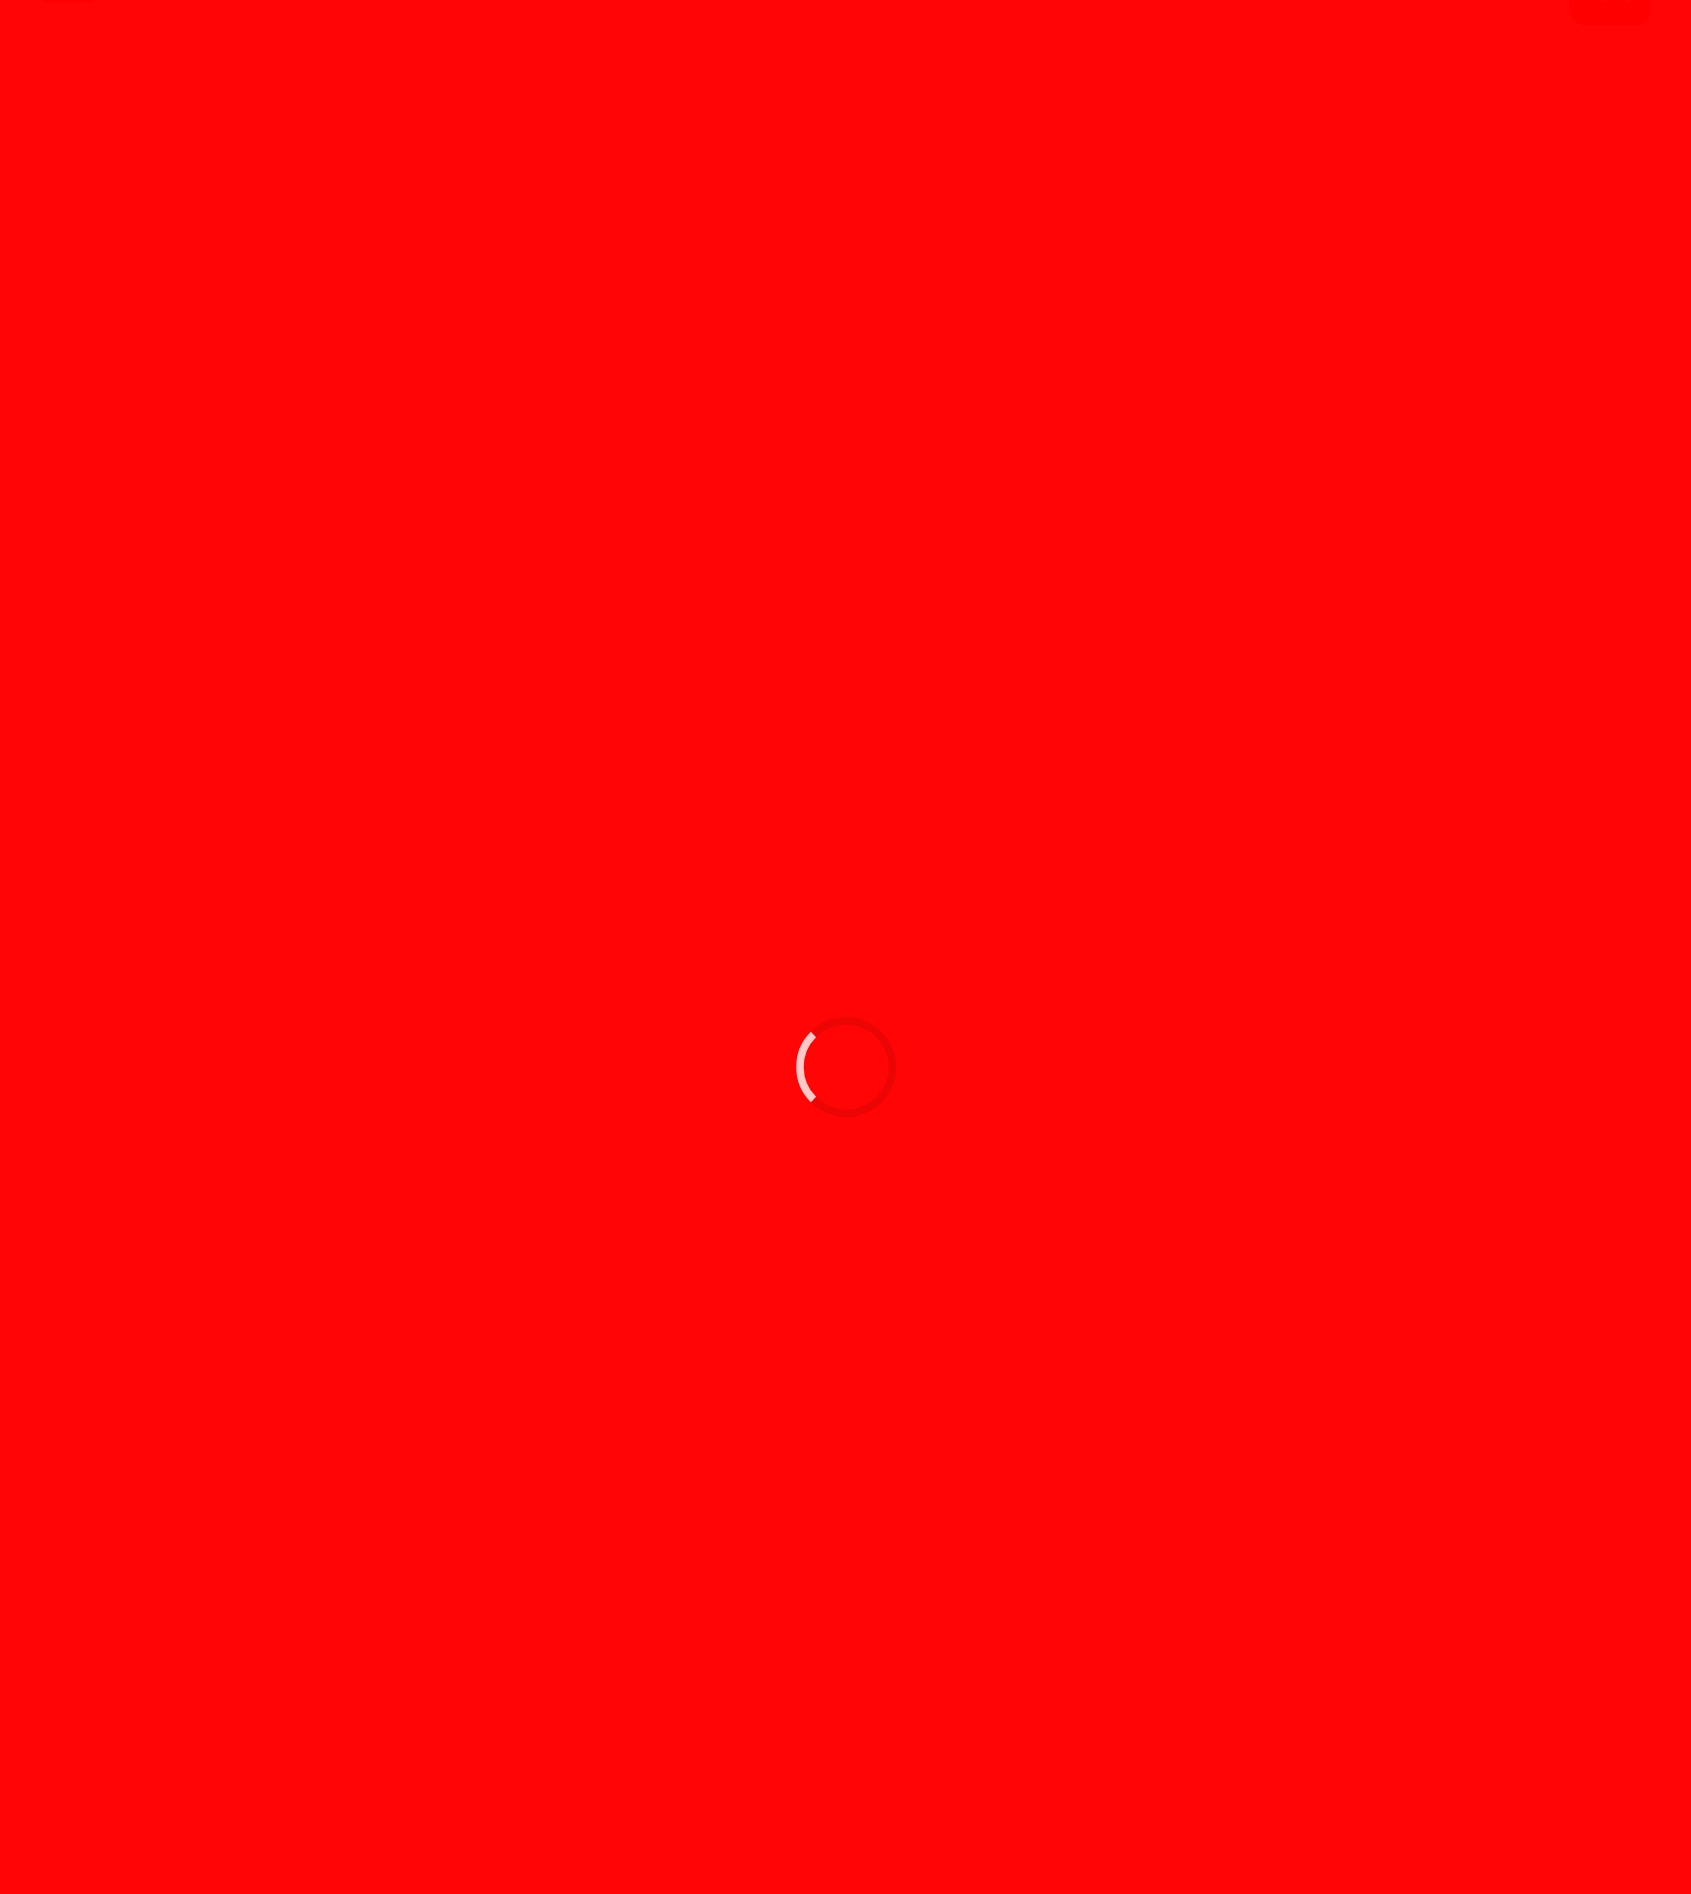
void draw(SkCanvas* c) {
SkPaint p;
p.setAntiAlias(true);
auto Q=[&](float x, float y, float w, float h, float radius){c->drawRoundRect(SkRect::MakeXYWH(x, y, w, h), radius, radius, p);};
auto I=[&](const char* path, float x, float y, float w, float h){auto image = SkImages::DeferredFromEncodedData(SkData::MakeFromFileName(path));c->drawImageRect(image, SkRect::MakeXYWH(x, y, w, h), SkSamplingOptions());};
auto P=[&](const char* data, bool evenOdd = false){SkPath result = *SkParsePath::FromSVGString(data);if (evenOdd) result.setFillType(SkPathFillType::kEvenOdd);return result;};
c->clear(0xffff0505);
I("1.png",42,0,52,3);
p.setColor(0xffff0000);
Q(1570,-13,80,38,13);
I("2.png",1600,0,31,3);
p.setStroke(true);
p.setStrokeWidth(7.5);
p.setColor(0xffeb0505);
c->drawPath(P("M813.5 1034.5c8.5-9 20.5-13.5 32.5-13.5c41 0 62 50 33 78.5c-6.5 6.5-15 11-23.5 13c-15 3-31-2-42-13"),p);
p.setColor(0xc7ffffff);
c->drawPath(P("M813.5 1099.5c-18-17.5-18-47.5 0-65"),p);
}
